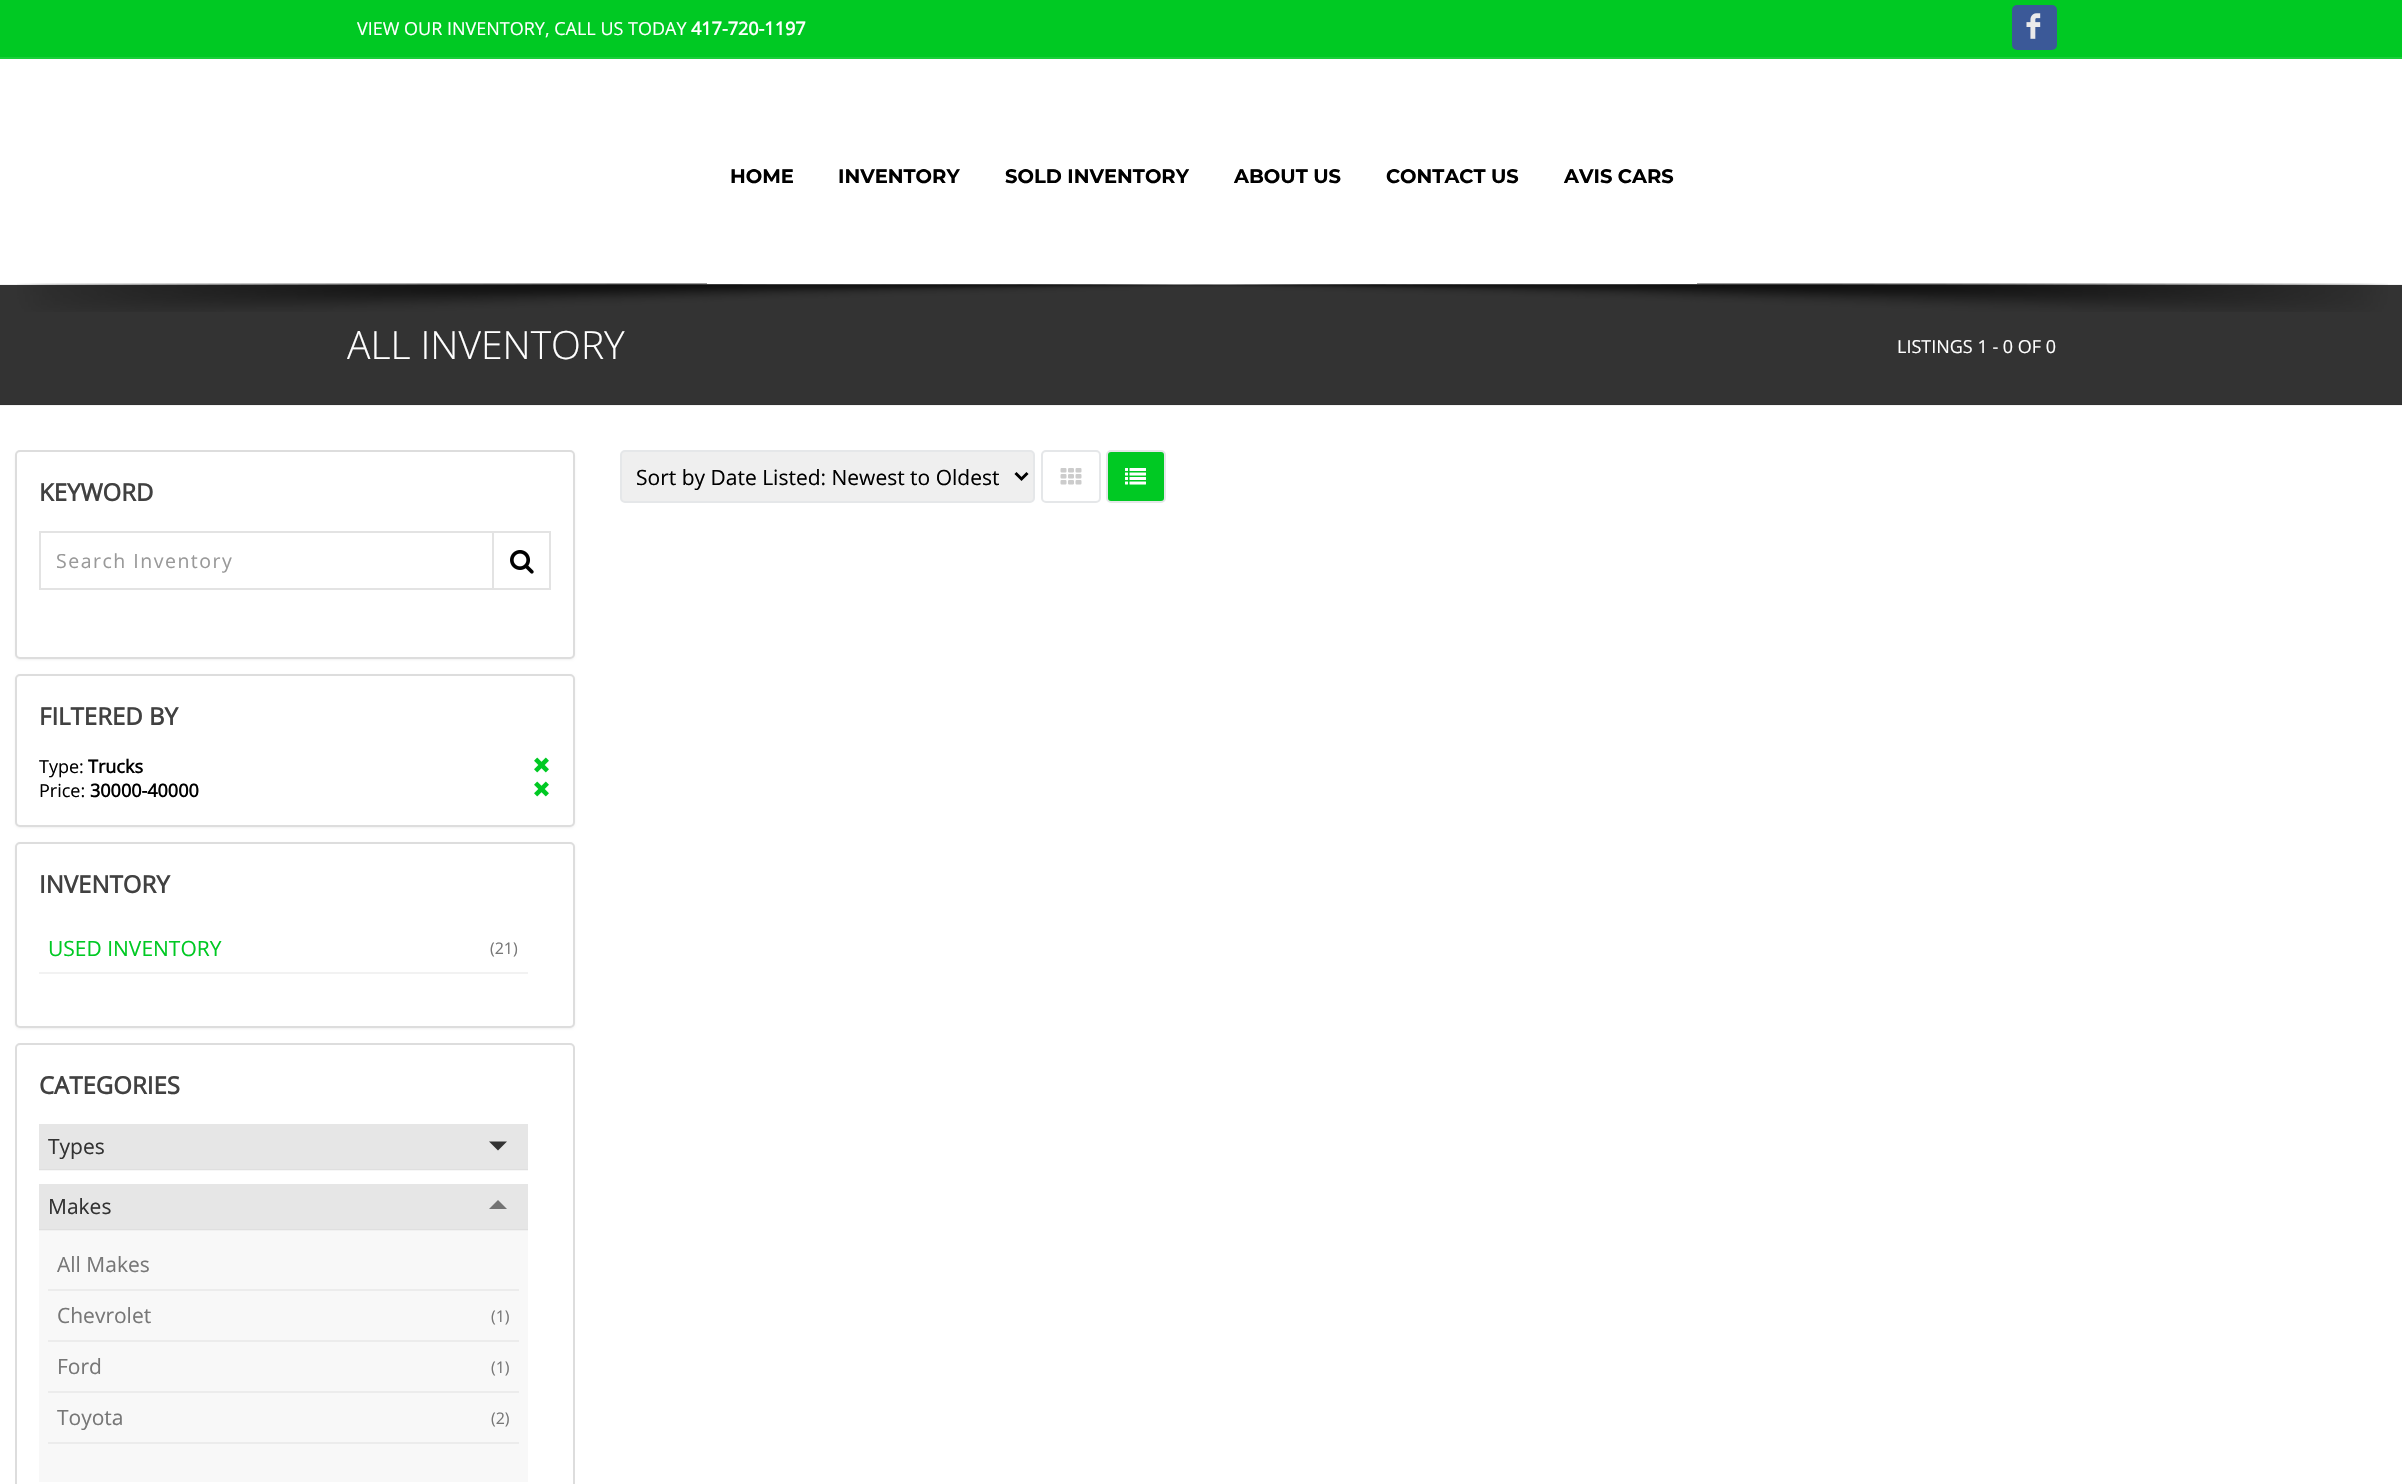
void draw(SkCanvas* c) {
SkPaint p;
p.setAntiAlias(true);
auto F=[&](const char* family, int weight, float size, bool italic = false){SkFontStyle style(weight, SkFontStyle::kNormal_Width,italic ? SkFontStyle::kItalic_Slant : SkFontStyle::kUpright_Slant);SkFont result(fontMgr->matchFamilyStyle(family, style), size);result.setSubpixel(true);return result;};
auto T=[&](const char* s, float x, float y, const SkFont& font){c->drawString(s, x, y, font, p);};
auto L=[&](const char* s, float x, float y, const SkFont& font, const SkPaint& ink, float letter, float word){std::vector<SkGlyphID> glyphs(font.countText(s, strlen(s), SkTextEncoding::kUTF8));std::vector<float> xs(glyphs.size());font.textToGlyphs(s, strlen(s), SkTextEncoding::kUTF8, glyphs);font.getXPos(glyphs, xs, x);float extra = 0;for (size_t i = 0; i < glyphs.size(); i++) {xs[i] += extra;extra += letter + word * (glyphs[i] == font.unicharToGlyph(' '));}c->drawTextBlob(SkTextBlob::MakeFromPosHGlyphs(glyphs, xs, y, font), 0, 0, ink);};
auto R=[&](float x, float y, float w, float h){c->drawRect(SkRect::MakeXYWH(x, y, w, h), p);};
auto Q=[&](float x, float y, float w, float h, float radius){c->drawRoundRect(SkRect::MakeXYWH(x, y, w, h), radius, radius, p);};
auto I=[&](const char* path, float x, float y, float w, float h){auto image = SkImages::DeferredFromEncodedData(SkData::MakeFromFileName(path));c->drawImageRect(image, SkRect::MakeXYWH(x, y, w, h), SkSamplingOptions());};
auto P=[&](const char* data, bool evenOdd = false){SkPath result = *SkParsePath::FromSVGString(data);if (evenOdd) result.setFillType(SkPathFillType::kEvenOdd);return result;};
c->clear(0xffffffff);
p.setColor(0xfff2f2f2);
R(0,405,2402,1);
p.setColor(0xff00c923);
R(0,0,2402,57);
p.setColor(0xff1ace39);
R(0,57,2402,2);
auto f1 = F("Open Sans",400,18);
p.setColor(0xffffffff);
T("VIEW OUR INVENTORY, CALL US TODAY",357,35,f1);
auto f2 = F("Open Sans",700,18);
T("417-720-1197",691,35,f2);
p.setColor(0xff3b5998);
Q(2012,5,45,45,5);
I("1.png",2026,13,15,26);
p.setColor(0x0d000000);
R(0,284,2402,1);
p.setColor(0xff333333);
R(0,285,2402,119);
I("2.png",17,283,2371,29);
p.setColor(0xffffffff);
R(707,283,990,1);
auto f3 = F("Montserrat",100,19.5);
p.setColor(0xff000000);
T("HOME",730,183,f3);
T("INVENTORY",838,183,f3);
T("SOLD INVENTORY",1005,183,f3);
T("ABOUT US",1234,183,f3);
T("CONTACT US",1386,183,f3);
T("AVIS CARS",1564,183,f3);
p.setColor(0xff303030);
R(0,404,2402,1);
auto f4 = F("Open Sans",300,39);
p.setColor(0xffffffff);
T("ALL INVENTORY",347,359,f4);
T("LISTINGS 1 - 0 OF 0",1897,353,f1);
p.setColor(0xffefefef);
c->drawRoundRect(SkRect::MakeXYWH(621,451,413,51),4,4,p);
p.setStroke(true);
p.setStrokeWidth(2);
p.setColor(0xffe5e7e9);
c->drawRoundRect(SkRect::MakeXYWH(621,451,413,51),4,4,p);
p.setStrokeWidth(3);
p.setColor(0xff000000);
c->drawPath(P("M1015.5 473l6 6l6-6"),p);
auto f5 = F("Open Sans",400,21);
p.setStroke(false);
T("Sort by Date Listed: Newest to Oldest",636,485,f5);
p.setStroke(true);
p.setStrokeWidth(2);
p.setColor(0xffe5e7e9);
c->drawRoundRect(SkRect::MakeXYWH(1042,451,58,51),4,4,p);
I("3.png",1060,468,22,17);
p.setStroke(false);
p.setColor(0xff00c923);
c->drawRoundRect(SkRect::MakeXYWH(1107,451,58,51),4,4,p);
p.setStroke(true);
p.setColor(0xffe5e7e9);
c->drawRoundRect(SkRect::MakeXYWH(1107,451,58,51),4,4,p);
I("4.png",1125,468,21,17);
p.setStroke(false);
p.setColor(0x0d000000);
p.setMaskFilter(SkMaskFilter::MakeBlur(kNormal_SkBlurStyle, 1));
c->drawRoundRect(SkRect::MakeXYWH(15,452,560,208),5,5,p);
p.setMaskFilter(nullptr);
p.setColor(0xffffffff);
c->drawRoundRect(SkRect::MakeXYWH(16,451,558,207),4,4,p);
p.setStroke(true);
p.setColor(0xffdddddd);
c->drawRoundRect(SkRect::MakeXYWH(16,451,558,207),4,4,p);
auto f6 = F("Open Sans",700,24);
p.setStroke(false);
p.setColor(0xff414141);
T("KEYWORD",39,501,f6);
p.setStroke(true);
p.setColor(0xffe3e3e3);
c->drawRect(SkRect::MakeXYWH(40,532,510,57),p);
auto f7 = F("Open Sans",400,19.5);
p.setStroke(false);
p.setColor(0xff999999);
L("Search Inventory",56,568,f7,p,1.5,0);
p.setColor(0xffe3e3e3);
R(492,531,2,59);
I("5.png",510,550,24,24);
p.setColor(0x0d000000);
p.setMaskFilter(SkMaskFilter::MakeBlur(kNormal_SkBlurStyle, 1));
c->drawRoundRect(SkRect::MakeXYWH(15,675,560,153),5,5,p);
p.setMaskFilter(nullptr);
p.setColor(0xffffffff);
c->drawRoundRect(SkRect::MakeXYWH(16,675,558,151),4,4,p);
p.setStroke(true);
p.setColor(0xffdddddd);
c->drawRoundRect(SkRect::MakeXYWH(16,675,558,151),4,4,p);
p.setStroke(false);
p.setColor(0xff414141);
T("FILTERED BY",39,725,f6);
p.setColor(0xff000000);
T("Type:",39,773,f1);
T("Trucks",88,773,f2);
I("6.png",534,757,15,16);
T("Price:",39,797,f1);
T("30000-40000",90,797,f2);
I("6.png",534,781,15,16);
p.setColor(0x0d000000);
p.setMaskFilter(SkMaskFilter::MakeBlur(kNormal_SkBlurStyle, 1));
c->drawRoundRect(SkRect::MakeXYWH(15,843,560,186),5,5,p);
p.setMaskFilter(nullptr);
p.setColor(0xffffffff);
c->drawRoundRect(SkRect::MakeXYWH(16,843,558,184),4,4,p);
p.setStroke(true);
p.setColor(0xffdddddd);
c->drawRoundRect(SkRect::MakeXYWH(16,843,558,184),4,4,p);
p.setStroke(false);
p.setColor(0xff414141);
T("INVENTORY",39,893,f6);
p.setColor(0xfff2f2f2);
R(39,972,489,2);
p.setColor(0xff00c923);
T("USED INVENTORY",48,956,f5);
auto f8 = F("Open Sans",400,16);
p.setColor(0xff777777);
T("(21)",490,954,f8);
p.setColor(0xfff7f7f7);
R(39,1170,489,1);
p.setStroke(true);
p.setColor(0xffdddddd);
c->drawRoundRect(SkRect::MakeXYWH(16,1044,558,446),4,4,p);
p.setStroke(false);
p.setColor(0xff414141);
T("CATEGORIES",39,1094,f6);
p.setColor(0xffe6e6e6);
R(39,1124,489,45);
p.setColor(0xffdfdfdf);
R(39,1169,489,1);
p.setColor(0xff333333);
T("Types",48,1154,f5);
c->drawPath(P("M489 1141.5h18l-9 9z"),p);
p.setColor(0xffe6e6e6);
R(39,1184,489,45);
p.setColor(0xffdfdfdf);
R(39,1229,489,1);
p.setColor(0xff333333);
T("Makes",48,1214,f5);
p.setColor(0xff737373);
c->drawPath(P("M507 1209h-18l9-9z"),p);
p.setColor(0xfff8f8f8);
R(39,1231,489,251);
p.setColor(0xfff1f1f1);
R(39,1230,489,1);
p.setColor(0xffececec);
R(48,1289,471,2);
p.setColor(0xff777777);
T("All Makes",57,1272,f5);
p.setColor(0xffececec);
R(48,1340,471,2);
p.setColor(0xff777777);
T("Chevrolet",57,1323,f5);
T("(1)",491,1322,f8);
p.setColor(0xffececec);
R(48,1391,471,2);
p.setColor(0xff777777);
T("Ford",57,1374,f5);
T("(1)",491,1373,f8);
p.setColor(0xffececec);
R(48,1442,471,2);
p.setColor(0xff777777);
T("Toyota",57,1425,f5);
T("(2)",491,1424,f8);
}
